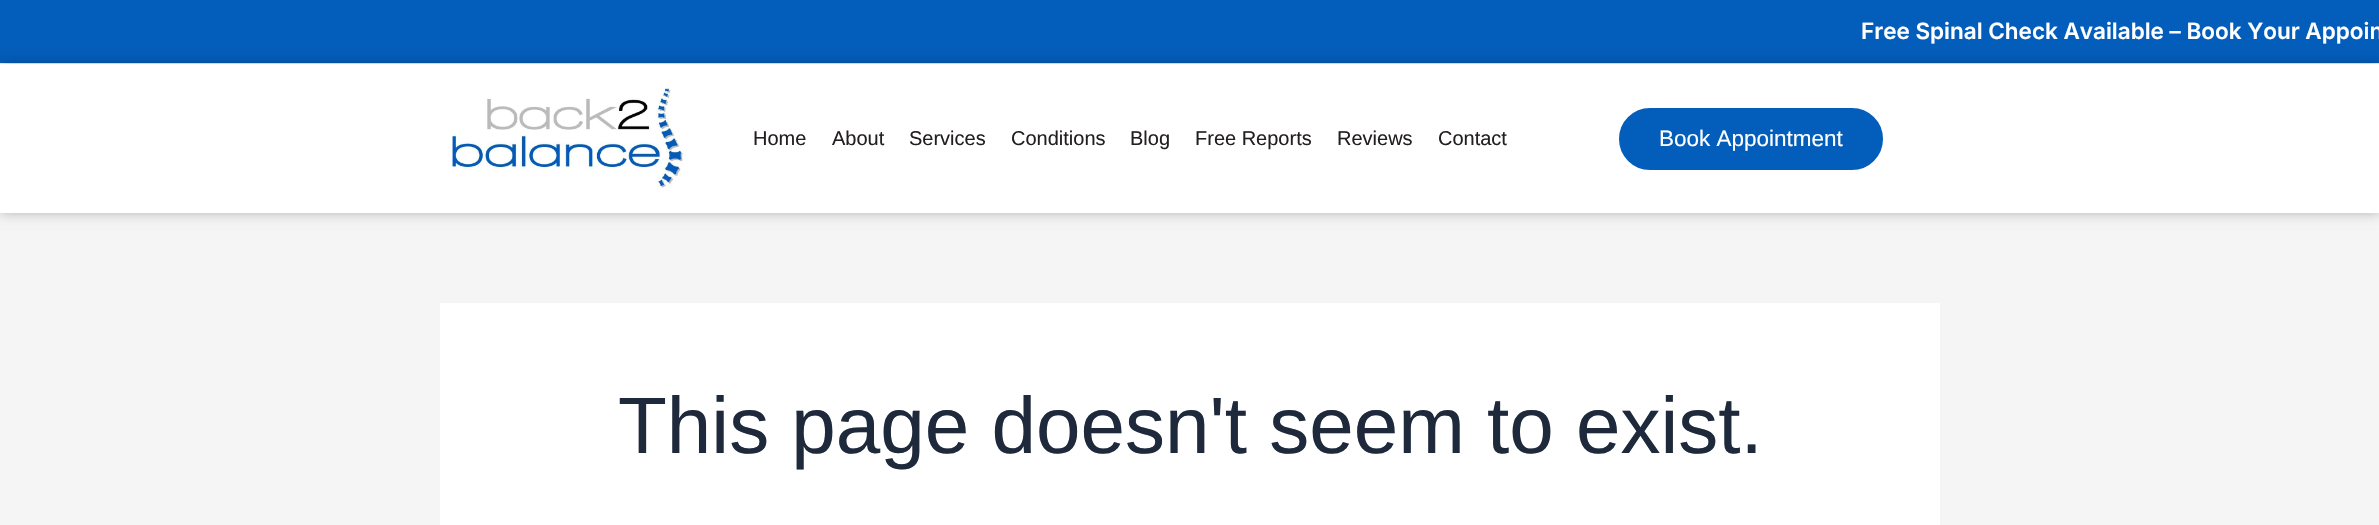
void draw(SkCanvas* c) {
SkPaint p;
p.setAntiAlias(true);
auto F=[&](const char* family, int weight, float size, bool italic = false){SkFontStyle style(weight, SkFontStyle::kNormal_Width,italic ? SkFontStyle::kItalic_Slant : SkFontStyle::kUpright_Slant);SkFont result(fontMgr->matchFamilyStyle(family, style), size);result.setSubpixel(true);return result;};
auto T=[&](const char* s, float x, float y, const SkFont& font){c->drawString(s, x, y, font, p);};
auto R=[&](float x, float y, float w, float h){c->drawRect(SkRect::MakeXYWH(x, y, w, h), p);};
auto I=[&](const char* path, float x, float y, float w, float h){auto image = SkImages::DeferredFromEncodedData(SkData::MakeFromFileName(path));c->drawImageRect(image, SkRect::MakeXYWH(x, y, w, h), SkSamplingOptions());};
c->clear(0xfff5f5f5);
p.setColor(0xff035dba);
R(0,0,2379,63);
auto f1 = F("Inter",600,22.5);
p.setColor(0xffffffff);
T("Free Spinal Check Available – Book Your Appoin",1861,39,f1);
p.setColor(0x45000000);
p.setMaskFilter(SkMaskFilter::MakeBlur(kNormal_SkBlurStyle, 6));
c->drawRect(SkRect::MakeXYWH(0,64,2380,149),p);
p.setMaskFilter(nullptr);
p.setColor(0xffffffff);
R(0,64,2379,149);
I("1.png",452,88,231,100);
auto f2 = F("Liberation Sans",400,20);
p.setColor(0xff231f20);
T("Home",753,145,f2);
T("About",832,145,f2);
T("Services",909,145,f2);
T("Conditions",1011,145,f2);
T("Blog",1130,145,f2);
T("Free Reports",1195,145,f2);
T("Reviews",1337,145,f2);
T("Contact",1438,145,f2);
p.setColor(0xff035dba);
c->drawRoundRect(SkRect::MakeXYWH(1620.5,109.5,261,59),29.5,29.5,p);
p.setStroke(true);
p.setStrokeWidth(3);
c->drawRoundRect(SkRect::MakeXYWH(1620.5,109.5,261,59),29.5,29.5,p);
auto f3 = F("Liberation Sans",400,22.5);
p.setStroke(false);
p.setColor(0xffffffff);
T("Book Appointment",1659,146,f3);
R(440,303,1500,222);
auto f4 = F("Liberation Sans",400,80);
p.setColor(0xff1e293b);
T("This page doesn't seem to exist.",618,453,f4);
}
